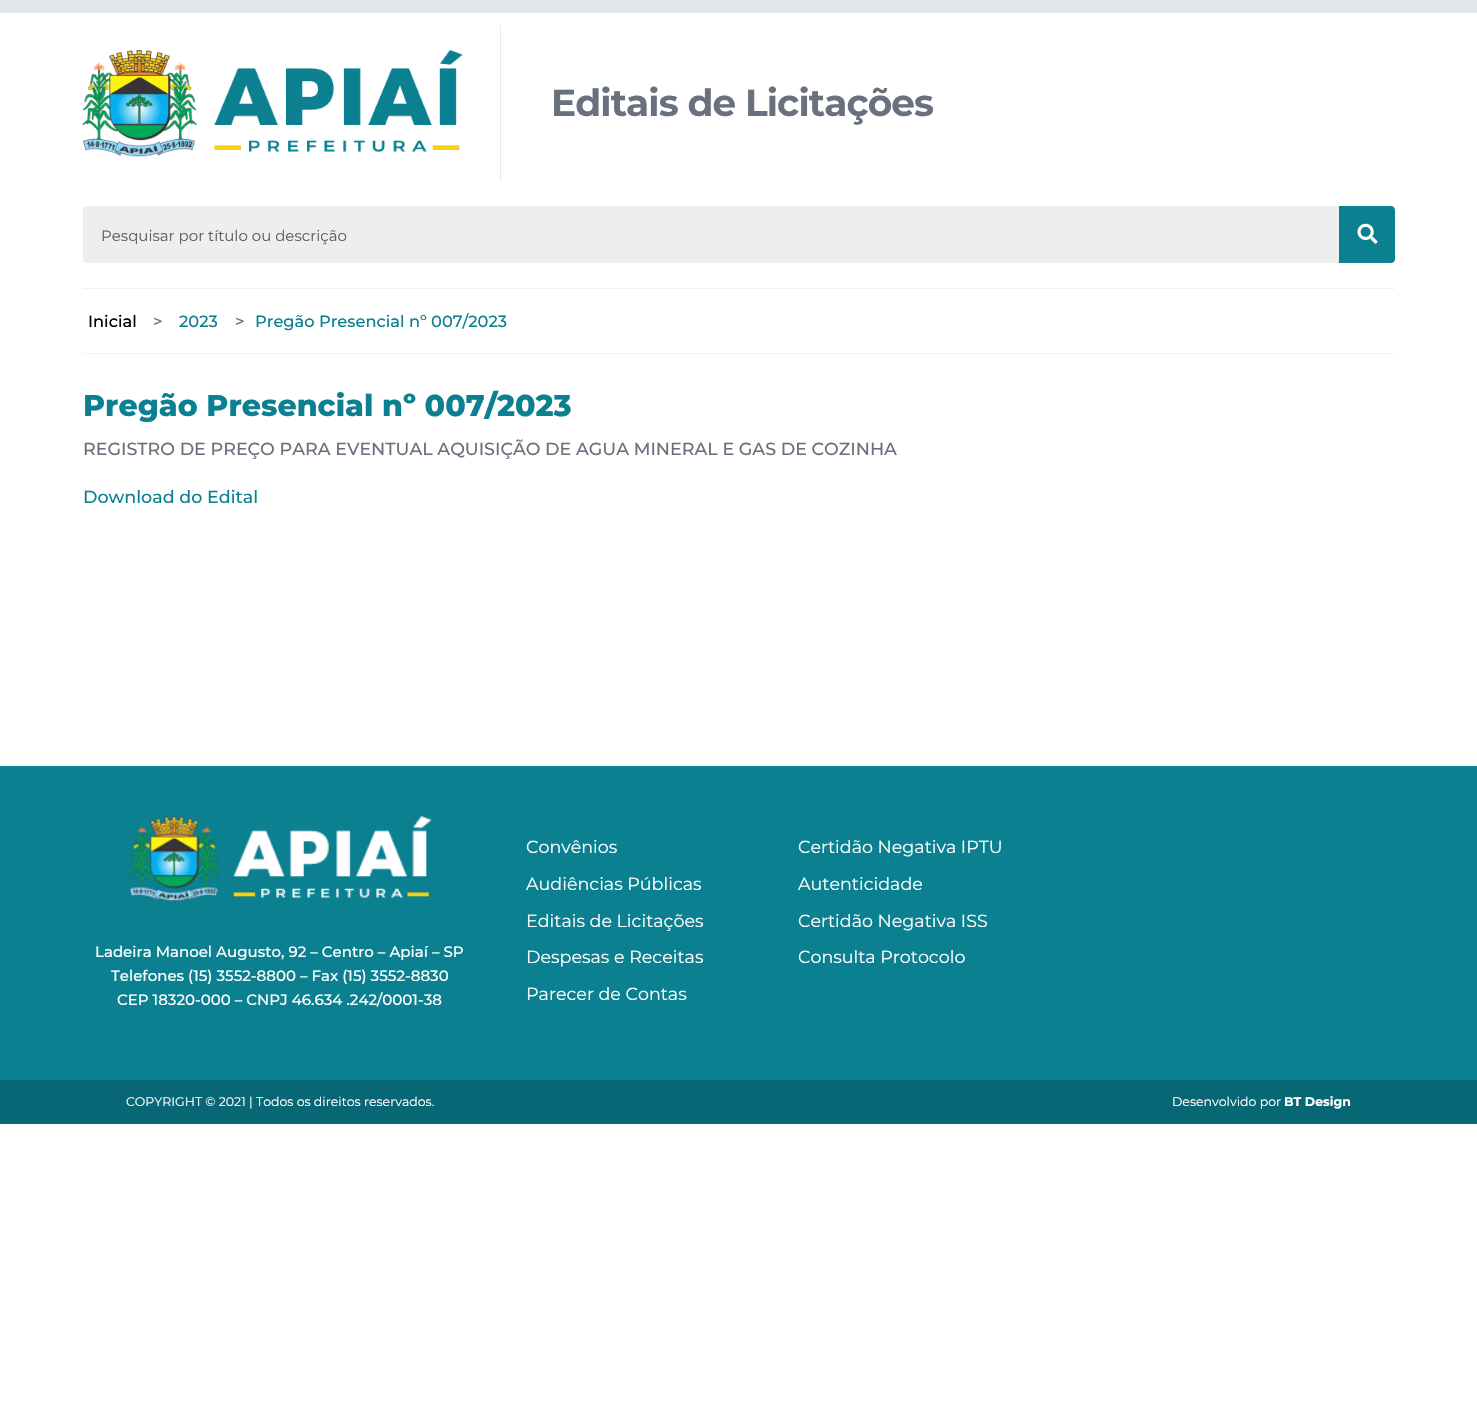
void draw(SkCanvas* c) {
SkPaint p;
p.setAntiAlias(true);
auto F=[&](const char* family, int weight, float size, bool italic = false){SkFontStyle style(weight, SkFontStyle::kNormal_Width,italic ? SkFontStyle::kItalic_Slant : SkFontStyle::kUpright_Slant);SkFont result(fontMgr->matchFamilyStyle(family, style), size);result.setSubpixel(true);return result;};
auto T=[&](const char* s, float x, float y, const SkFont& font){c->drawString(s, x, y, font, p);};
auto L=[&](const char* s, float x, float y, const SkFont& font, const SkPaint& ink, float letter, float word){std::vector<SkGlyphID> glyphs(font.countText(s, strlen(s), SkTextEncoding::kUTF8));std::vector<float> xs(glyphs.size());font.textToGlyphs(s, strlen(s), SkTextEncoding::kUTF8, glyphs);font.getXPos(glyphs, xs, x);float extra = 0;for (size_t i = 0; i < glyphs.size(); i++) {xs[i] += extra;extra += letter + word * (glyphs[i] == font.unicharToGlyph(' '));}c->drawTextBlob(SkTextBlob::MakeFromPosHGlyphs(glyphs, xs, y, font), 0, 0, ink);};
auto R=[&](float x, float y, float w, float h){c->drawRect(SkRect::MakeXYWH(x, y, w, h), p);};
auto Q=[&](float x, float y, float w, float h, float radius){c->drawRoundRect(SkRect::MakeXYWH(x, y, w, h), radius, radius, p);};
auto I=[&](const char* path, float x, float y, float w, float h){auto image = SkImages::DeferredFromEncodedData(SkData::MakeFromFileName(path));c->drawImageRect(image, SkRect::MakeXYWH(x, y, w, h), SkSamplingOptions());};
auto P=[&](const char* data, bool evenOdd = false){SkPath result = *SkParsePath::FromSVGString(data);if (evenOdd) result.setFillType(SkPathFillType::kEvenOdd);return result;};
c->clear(0xffffffff);
p.setColor(0xffe3e6eb);
R(0,0,1477,13);
I("1.png",82,50,381,107);
p.setColor(0xffe7e9ee);
R(500,25,1,156);
auto f1 = F("Montserrat",700,37.5);
p.setColor(0xff69717e);
L("Editais de Licitações",551,116,f1,p,-.9,0);
p.setColor(0xffeceeef);
Q(83,206,1312,57,4);
auto f2 = F("Montserrat",400,15);
p.setColor(0xff5e5f60);
T("Pesquisar por título ou descrição",101,241,f2);
p.setColor(0xff0b8091);
c->drawPath(P("M1339 206h52c2 0 4 2 4 4v49c0 2-2 4-4 4h-52z"),p);
I("2.png",1357,223,21,21);
p.setColor(0xfff1f1f1);
R(83,288,1312,1);
auto f3 = F("Montserrat",500,16.25);
p.setColor(0xff000000);
T("Inicial",88,327,f3);
p.setColor(0xff69717e);
T(">",153,327,f3);
p.setColor(0xff0b8091);
T("2023",179,327,f3);
p.setColor(0xff69717e);
T(">",235,327,f3);
p.setColor(0xff0b8091);
T("Pregão Presencial nº 007/2023",255,327,f3);
p.setColor(0xfff1f1f1);
R(83,353,1312,1);
auto f4 = F("Montserrat",800,30);
p.setColor(0xff0b8091);
T("Pregão Presencial nº 007/2023",83,416,f4);
auto f5 = F("Montserrat",500,17.5);
p.setColor(0xff69717e);
T("REGISTRO DE PREÇO PARA EVENTUAL AQUISIÇÃO DE AGUA MINERAL E GAS DE COZINHA",83,455,f5);
p.setColor(0xff0b8091);
T("Download do Edital",83,503,f5);
R(0,766,1477,314);
auto f6 = F("Montserrat",400,17.5);
p.setColor(0xffffffff);
T("Convênios",526,853,f6);
T("Audiências Públicas",526,890,f6);
T("Editais de Licitações",526,927,f6);
T("Despesas e Receitas",526,963,f6);
T("Parecer de Contas",526,1000,f6);
T("Certidão Negativa IPTU",798,853,f6);
T("Autenticidade",798,890,f6);
T("Certidão Negativa ISS",798,927,f6);
T("Consulta Protocolo",798,963,f6);
I("3.png",128,816,304,86);
auto f7 = F("Montserrat",500,15);
T("Ladeira Manoel Augusto, 92 – Centro – Apiaí – SP",95,957,f7);
T("Telefones (15) 3552-8800 – Fax (15) 3552-8830",111,981,f7);
T("CEP 18320-000 – CNPJ 46.634 .242/0001-38",117,1005,f7);
p.setColor(0xff086775);
R(0,1080,1477,44);
auto f8 = F("Montserrat",400,12.5);
p.setColor(0xffffffff);
T("COPYRIGHT © 2021 | Todos os direitos reservados.",126,1106,f8);
T("Desenvolvido por",1172,1106,f8);
auto f9 = F("Montserrat",700,12.5);
T("BT Design",1284,1106,f9);
}
